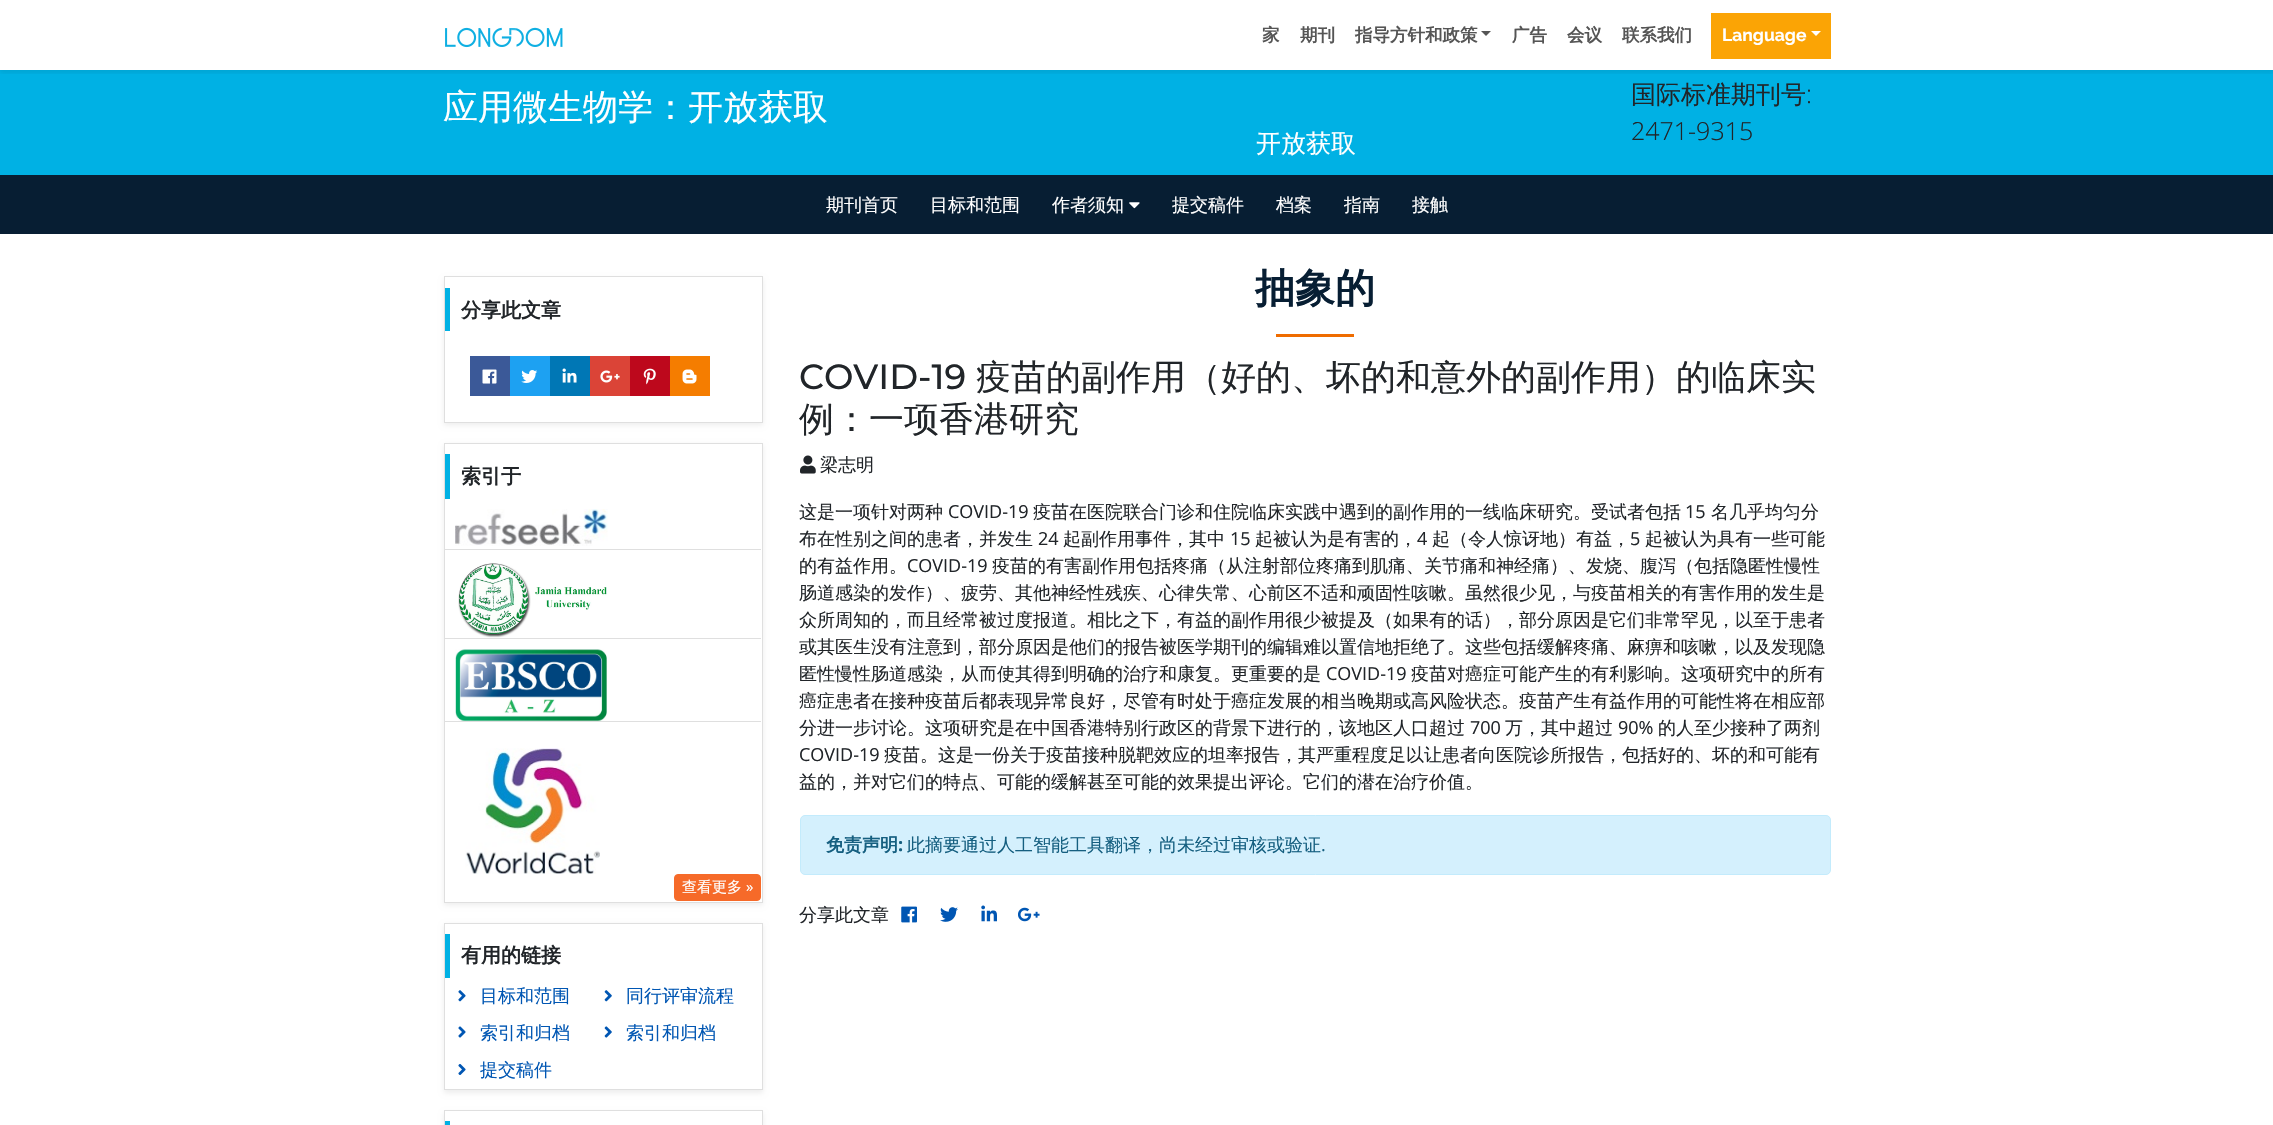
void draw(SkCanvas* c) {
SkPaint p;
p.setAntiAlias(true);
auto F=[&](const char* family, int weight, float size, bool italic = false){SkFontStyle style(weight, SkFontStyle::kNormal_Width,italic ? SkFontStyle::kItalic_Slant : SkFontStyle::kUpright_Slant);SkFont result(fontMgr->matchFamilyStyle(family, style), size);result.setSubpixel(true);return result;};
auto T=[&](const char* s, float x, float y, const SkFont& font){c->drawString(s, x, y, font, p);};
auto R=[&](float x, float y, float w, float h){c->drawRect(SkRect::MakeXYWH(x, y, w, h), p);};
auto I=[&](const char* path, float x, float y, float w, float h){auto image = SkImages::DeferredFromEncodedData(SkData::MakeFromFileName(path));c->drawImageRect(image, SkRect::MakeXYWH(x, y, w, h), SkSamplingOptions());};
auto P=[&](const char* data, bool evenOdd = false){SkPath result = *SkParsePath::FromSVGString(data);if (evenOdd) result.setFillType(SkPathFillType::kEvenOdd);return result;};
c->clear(0xffffffff);
p.setColor(0xff00b1e4);
R(0,70,2273,105);
c->save();
c->clipRect(SkRect::MakeXYWH(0,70,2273,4));
p.setColor(0x12000000);
p.setMaskFilter(SkMaskFilter::MakeBlur(kNormal_SkBlurStyle, 2.5));
c->drawRect(SkRect::MakeXYWH(0,3,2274,70),p);
p.setMaskFilter(nullptr);
c->restore();
I("1.png",445,27,118,21);
auto f1 = F("WenQuanYi Zen Hei",700,17.5);
p.setColor(0xff555555);
T("家",1262,41,f1);
T("期刊",1300,41,f1);
T("指导方针和政策",1355,41,f1);
c->drawPath(P("M1481 31h10l-5 5z"),p);
T("广告",1512,41,f1);
T("会议",1567,41,f1);
T("联系我们",1622,41,f1);
p.setColor(0xfffba405);
R(1711,13,120,46);
auto f2 = F("Raleway",100,17.5);
p.setColor(0xffffffff);
T("Language",1722,41,f2);
c->drawPath(P("M1811 31h10l-5 5z"),p);
auto f3 = F("WenQuanYi Zen Hei",500,35);
T("应用微生物学：开放获取",443,119,f3);
auto f4 = F("WenQuanYi Zen Hei",500,25);
T("开放获取",1256,152,f4);
p.setColor(0xff212529);
T("国际标准期刊号",1631,103,f4);
auto f5 = F("Open Sans",300,25);
T(":",1806,103,f5);
T("2471-9315",1631,140,f5);
p.setColor(0xff071e33);
R(0,175,2273,59);
auto f6 = F("WenQuanYi Zen Hei",500,18);
p.setColor(0xffffffff);
T("期刊首页",826,211,f6);
T("目标和范围",930,211,f6);
T("作者须知",1052,211,f6);
I("2.png",1129,202,11,7);
T("提交稿件",1172,211,f6);
T("档案",1276,211,f6);
T("指南",1344,211,f6);
T("接触",1412,211,f6);
p.setColor(0x12000000);
p.setMaskFilter(SkMaskFilter::MakeBlur(kNormal_SkBlurStyle, 2.5));
c->drawRect(SkRect::MakeXYWH(444,279,319,146),p);
p.setMaskFilter(nullptr);
p.setColor(0xffffffff);
c->drawRect(SkRect::MakeXYWH(444.5,276.5,318,146),p);
p.setStroke(true);
p.setStrokeWidth(1);
p.setColor(0xffdfdfdf);
c->drawRect(SkRect::MakeXYWH(444.5,276.5,318,146),p);
p.setStroke(false);
p.setColor(0xff00b1e4);
R(445,288,5,43);
auto f7 = F("WenQuanYi Zen Hei",700,20);
p.setColor(0xff212529);
T("分享此文章",461,317,f7);
p.setColor(0xff3b5998);
R(470,356,40,40);
I("3.png",482,369,15,15);
p.setColor(0xff1da1f2);
R(510,356,40,40);
I("4.png",521,370,17,13);
p.setColor(0xff0077b5);
R(550,356,40,40);
I("5.png",562,368,15,15);
p.setColor(0xffdb4437);
R(590,356,40,40);
I("6.png",600,370,20,13);
p.setColor(0xffbd081c);
R(630,356,40,40);
I("7.png",643,368,13,17);
p.setColor(0xfff57d00);
R(670,356,40,40);
I("8.png",682,369,15,15);
p.setColor(0x12000000);
p.setMaskFilter(SkMaskFilter::MakeBlur(kNormal_SkBlurStyle, 2.5));
c->drawRect(SkRect::MakeXYWH(444,445,319,460),p);
p.setMaskFilter(nullptr);
p.setColor(0xffffffff);
c->drawRect(SkRect::MakeXYWH(444.5,443.5,318,459),p);
p.setStroke(true);
p.setColor(0xffdfdfdf);
c->drawRect(SkRect::MakeXYWH(444.5,443.5,318,459),p);
p.setStroke(false);
p.setColor(0xff00b1e4);
R(445,454,5,45);
p.setColor(0xff212529);
T("索引于",461,483,f7);
I("9.png",455,509,153,37);
p.setColor(0xffdfdfdf);
R(445,549,316,1);
I("10.png",458,563,149,75);
R(445,638,316,1);
I("11.png",455,649,153,72);
R(445,721,316,1);
I("12.png",465,748,135,126);
p.setColor(0xfff66a29);
c->drawRoundRect(SkRect::MakeXYWH(674.5,874.5,86,26),3.5,3.5,p);
p.setStroke(true);
c->drawRoundRect(SkRect::MakeXYWH(674.5,874.5,86,26),3.5,3.5,p);
auto f8 = F("WenQuanYi Zen Hei",500,15);
p.setStroke(false);
p.setColor(0xffffffff);
T("查看更多",682,892,f8);
auto f9 = F("Open Sans",400,15);
T("»",746,892,f9);
p.setColor(0x12000000);
p.setMaskFilter(SkMaskFilter::MakeBlur(kNormal_SkBlurStyle, 2.5));
c->drawRect(SkRect::MakeXYWH(444,925,319,168),p);
p.setMaskFilter(nullptr);
p.setColor(0xffffffff);
c->drawRect(SkRect::MakeXYWH(444.5,923.5,318,166),p);
p.setStroke(true);
p.setColor(0xffdfdfdf);
c->drawRect(SkRect::MakeXYWH(444.5,923.5,318,166),p);
p.setStroke(false);
p.setColor(0xff00b1e4);
R(445,934,5,44);
p.setColor(0xff212529);
T("有用的链接",461,962,f7);
I("13.png",458,990,8,12);
p.setColor(0xff0056b3);
T("目标和范围",480,1002,f6);
I("14.png",604,990,8,12);
T("同行评审流程",626,1002,f6);
I("15.png",458,1026,8,12);
T("索引和归档",480,1039,f6);
I("16.png",604,1026,8,12);
T("索引和归档",626,1039,f6);
I("17.png",458,1064,8,11);
T("提交稿件",480,1076,f6);
p.setColor(0x12000000);
p.setMaskFilter(SkMaskFilter::MakeBlur(kNormal_SkBlurStyle, 2.5));
c->drawRect(SkRect::MakeXYWH(444,1113,319,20),p);
p.setMaskFilter(nullptr);
p.setColor(0xffffffff);
c->drawRect(SkRect::MakeXYWH(444.5,1110.5,318,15),p);
p.setStroke(true);
p.setColor(0xffdfdfdf);
c->drawRect(SkRect::MakeXYWH(444.5,1110.5,318,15),p);
p.setStroke(false);
p.setColor(0xff00b1e4);
R(445,1121,5,4);
auto f10 = F("WenQuanYi Zen Hei",700,40);
p.setColor(0xff071e33);
T("抽象的",1255,302,f10);
p.setColor(0xffef6c00);
R(1276,334,78,3);
auto f11 = F("Montserrat",100,35);
p.setColor(0xff212529);
T("COVID-19",799,389,f11);
T("疫苗的副作用（好的、坏的和意外的副作用）的临床实",976,389,f3);
T("例：一项香港研究",799,431,f3);
I("18.png",800,455,16,19);
T("梁志明",820,471,f6);
T("这是一项针对两种",799,518,f6);
auto f12 = F("Open Sans",400,18);
T("COVID-19",948,518,f12);
T("疫苗在医院联合门诊和住院临床实践中遇到的副作用的一线临床研究。受试者包括",1033,518,f6);
T("15",1685,518,f12);
T("名几乎均匀分",1711,518,f6);
T("布在性别之间的患者，并发生",799,545,f6);
T("24",1038,545,f12);
T("起副作用事件，其中",1063,545,f6);
T("15",1230,545,f12);
T("起被认为是有害的，",1255,545,f6);
T("4",1417,545,f12);
T("起（令人惊讶地）有益，",1432,545,f6);
T("5",1630,545,f12);
T("起被认为具有一些可能",1645,545,f6);
T("的有益作用。",799,572,f6);
T("COVID-19",907,572,f12);
T("疫苗的有害副作用包括疼痛（从注射部位疼痛到肌痛、关节痛和神经痛）、发烧、腹泻（包括隐匿性慢性",992,572,f6);
T("肠道感染的发作）、疲劳、其他神经性残疾、心律失常、心前区不适和顽固性咳嗽。虽然很少见，与疫苗相关的有害作用的发生是",799,599,f6);
T("众所周知的，而且经常被过度报道。相比之下，有益的副作用很少被提及（如果有的话），部分原因是它们非常罕见，以至于患者",799,626,f6);
T("或其医生没有注意到，部分原因是他们的报告被医学期刊的编辑难以置信地拒绝了。这些包括缓解疼痛、麻痹和咳嗽，以及发现隐",799,653,f6);
T("匿性慢性肠道感染，从而使其得到明确的治疗和康复。更重要的是",799,680,f6);
T("COVID-19",1326,680,f12);
T("疫苗对癌症可能产生的有利影响。这项研究中的所有",1411,680,f6);
T("癌症患者在接种疫苗后都表现异常良好，尽管有时处于癌症发展的相当晚期或高风险状态。疫苗产生有益作用的可能性将在相应部",799,707,f6);
T("分进一步讨论。这项研究是在中国香港特别行政区的背景下进行的，该地区人口超过",799,734,f6);
T("700",1470,734,f12);
T("万，其中超过",1505,734,f6);
T("90%",1618,734,f12);
T("的人至少接种了两剂",1658,734,f6);
T("COVID-19",799,761,f12);
T("疫苗。这是一份关于疫苗接种脱靶效应的坦率报告，其严重程度足以让患者向医院诊所报告，包括好的、坏的和可能有",884,761,f6);
T("益的，并对它们的特点、可能的缓解甚至可能的效果提出评论。它们的潜在治疗价值。",799,788,f6);
p.setColor(0xffd4f0fd);
c->drawRoundRect(SkRect::MakeXYWH(800.5,815.5,1030,59),4.5,4.5,p);
p.setStroke(true);
p.setColor(0xffc3ebfc);
c->drawRoundRect(SkRect::MakeXYWH(800.5,815.5,1030,59),4.5,4.5,p);
auto f13 = F("WenQuanYi Zen Hei",700,18);
p.setStroke(false);
p.setColor(0xff155f80);
T("免责声明",826,851,f13);
auto f14 = F("Open Sans",700,18);
T(":",898,851,f14);
T("此摘要通过人工智能工具翻译，尚未经过审核或验证",907,851,f6);
T(".",1321,851,f12);
p.setColor(0xff212529);
T("分享此文章",799,921,f6);
I("19.png",901,906,16,17);
I("20.png",940,907,18,15);
I("21.png",981,905,16,17);
I("22.png",1018,907,22,15);
}
